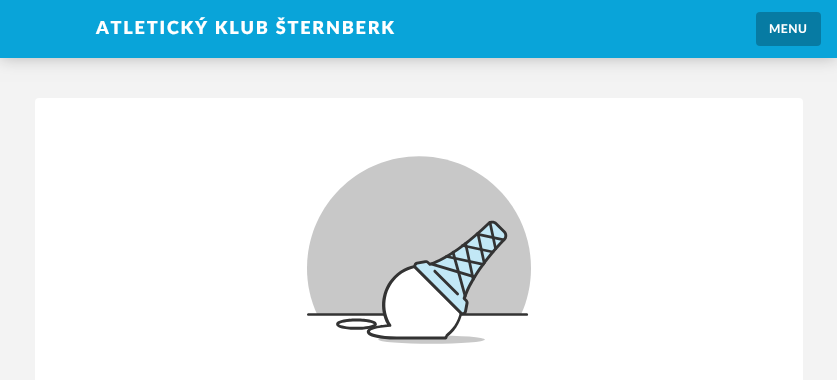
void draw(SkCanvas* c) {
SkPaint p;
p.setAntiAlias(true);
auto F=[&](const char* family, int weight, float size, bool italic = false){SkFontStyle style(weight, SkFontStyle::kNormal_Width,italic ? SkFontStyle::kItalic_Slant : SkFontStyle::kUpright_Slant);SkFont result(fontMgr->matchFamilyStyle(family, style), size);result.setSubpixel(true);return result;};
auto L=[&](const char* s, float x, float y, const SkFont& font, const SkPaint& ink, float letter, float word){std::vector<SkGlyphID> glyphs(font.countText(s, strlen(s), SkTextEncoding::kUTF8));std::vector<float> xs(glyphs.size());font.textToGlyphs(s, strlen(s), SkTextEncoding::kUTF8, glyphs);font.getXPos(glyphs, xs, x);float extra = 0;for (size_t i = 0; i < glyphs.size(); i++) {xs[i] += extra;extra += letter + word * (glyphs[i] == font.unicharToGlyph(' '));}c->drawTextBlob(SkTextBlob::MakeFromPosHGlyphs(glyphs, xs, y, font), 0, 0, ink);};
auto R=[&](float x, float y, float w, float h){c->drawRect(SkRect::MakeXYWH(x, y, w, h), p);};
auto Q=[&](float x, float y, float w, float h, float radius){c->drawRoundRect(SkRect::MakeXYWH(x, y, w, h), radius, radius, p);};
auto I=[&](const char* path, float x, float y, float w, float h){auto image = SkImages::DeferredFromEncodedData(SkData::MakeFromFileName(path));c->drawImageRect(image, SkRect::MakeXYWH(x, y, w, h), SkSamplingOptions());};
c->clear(0xfff3f3f3);
p.setColor(0x40000000);
p.setMaskFilter(SkMaskFilter::MakeBlur(kNormal_SkBlurStyle, 8));
c->drawRect(SkRect::MakeXYWH(0,0,837,58),p);
p.setMaskFilter(nullptr);
p.setColor(0xff09a4d9);
R(0,0,837,58);
auto f1 = F("Lato",900,18);
p.setColor(0xffffffff);
L("ATLETICKÝ KLUB ŠTERNBERK",96,34,f1,p,1.8,0);
p.setColor(0xff077ba3);
Q(756,12,65,34,4);
auto f2 = F("Lato",700,12);
p.setColor(0xffffffff);
L("MENU",769,33,f2,p,.5,0);
Q(35,98,768,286,4);
I("1.png",307,156,224,188);
}
